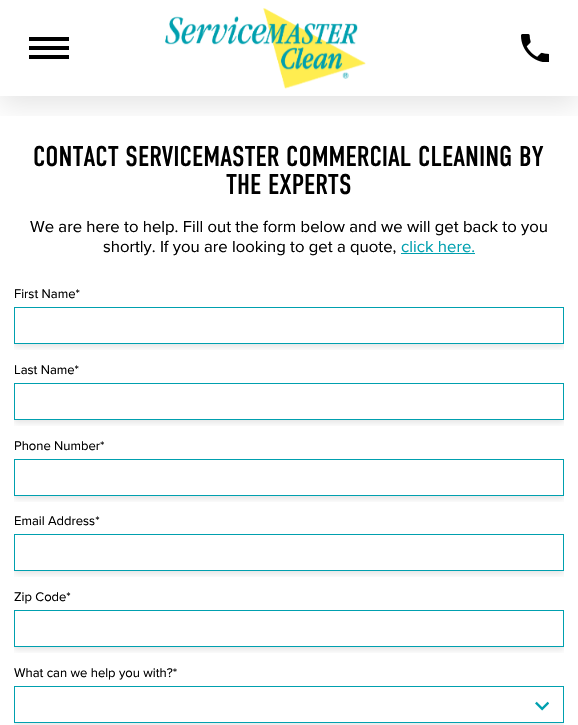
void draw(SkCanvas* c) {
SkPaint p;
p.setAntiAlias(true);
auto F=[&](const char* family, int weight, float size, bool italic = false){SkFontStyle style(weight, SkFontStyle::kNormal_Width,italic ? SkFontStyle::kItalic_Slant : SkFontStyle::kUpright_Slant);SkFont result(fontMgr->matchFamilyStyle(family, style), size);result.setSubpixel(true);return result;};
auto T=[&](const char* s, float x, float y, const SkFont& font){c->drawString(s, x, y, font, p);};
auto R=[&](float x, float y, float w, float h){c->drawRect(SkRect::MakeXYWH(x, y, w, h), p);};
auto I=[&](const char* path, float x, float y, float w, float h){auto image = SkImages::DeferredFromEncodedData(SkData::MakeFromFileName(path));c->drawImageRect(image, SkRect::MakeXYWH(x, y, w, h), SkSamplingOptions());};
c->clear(0xffffffff);
c->save();
c->clipRect(SkRect::MakeXYWH(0,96,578,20));
p.setColor(0x1a000000);
p.setMaskFilter(SkMaskFilter::MakeBlur(kNormal_SkBlurStyle, 13));
c->drawRect(SkRect::MakeXYWH(0,9,578,96),p);
p.setMaskFilter(nullptr);
c->restore();
p.setColor(0xff000000);
R(29,37,40,4);
R(29,46,40,4);
R(29,55,40,4);
I("1.png",165,8,201,81);
I("2.png",521,34,28,28);
auto f1 = F("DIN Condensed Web",400,28.5);
T("CONTACT SERVICEMASTER COMMERCIAL CLEANING BY",33,166,f1);
T("THE EXPERTS",226,194,f1);
auto f2 = F("Proxima Nova",400,16.65);
T("We are here to help. Fill out the form below and we will get back to you",30,232,f2);
T("shortly. If you are looking to get a quote,",103,252,f2);
p.setColor(0xff00a0af);
T("click here.",401,252,f2);
R(401,253,74,1);
auto f3 = F("Proxima Nova",400,13);
p.setColor(0xff000000);
T("First Name*",14,298,f3);
c->save();
c->clipRect(SkRect::MakeXYWH(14,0,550,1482));
c->clipRect(SkRect::MakeXYWH(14,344,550,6));
p.setColor(0x1a000000);
p.setMaskFilter(SkMaskFilter::MakeBlur(kNormal_SkBlurStyle, 3));
c->drawRect(SkRect::MakeXYWH(14,310,550,37),p);
p.setMaskFilter(nullptr);
c->restore();
p.setStroke(true);
p.setStrokeWidth(1);
p.setColor(0xff00a0af);
c->drawRect(SkRect::MakeXYWH(14.5,307.5,549,36),p);
p.setStroke(false);
p.setColor(0xff000000);
T("Last Name*",14,374,f3);
c->save();
c->clipRect(SkRect::MakeXYWH(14,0,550,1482));
c->clipRect(SkRect::MakeXYWH(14,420,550,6));
p.setColor(0x1a000000);
p.setMaskFilter(SkMaskFilter::MakeBlur(kNormal_SkBlurStyle, 3));
c->drawRect(SkRect::MakeXYWH(14,386,550,37),p);
p.setMaskFilter(nullptr);
c->restore();
p.setStroke(true);
p.setColor(0xff00a0af);
c->drawRect(SkRect::MakeXYWH(14.5,383.5,549,36),p);
p.setStroke(false);
p.setColor(0xff000000);
T("Phone Number*",14,450,f3);
c->save();
c->clipRect(SkRect::MakeXYWH(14,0,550,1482));
c->clipRect(SkRect::MakeXYWH(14,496,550,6));
p.setColor(0x1a000000);
p.setMaskFilter(SkMaskFilter::MakeBlur(kNormal_SkBlurStyle, 3));
c->drawRect(SkRect::MakeXYWH(14,462,550,37),p);
p.setMaskFilter(nullptr);
c->restore();
p.setStroke(true);
p.setColor(0xff00a0af);
c->drawRect(SkRect::MakeXYWH(14.5,459.5,549,36),p);
p.setStroke(false);
p.setColor(0xff000000);
T("Email Address*",14,525,f3);
c->save();
c->clipRect(SkRect::MakeXYWH(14,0,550,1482));
c->clipRect(SkRect::MakeXYWH(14,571,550,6));
p.setColor(0x1a000000);
p.setMaskFilter(SkMaskFilter::MakeBlur(kNormal_SkBlurStyle, 3));
c->drawRect(SkRect::MakeXYWH(14,537,550,37),p);
p.setMaskFilter(nullptr);
c->restore();
p.setStroke(true);
p.setColor(0xff00a0af);
c->drawRect(SkRect::MakeXYWH(14.5,534.5,549,36),p);
c->save();
c->clipRect(SkRect::MakeXYWH(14,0,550,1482));
c->clipRect(SkRect::MakeXYWH(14,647,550,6));
p.setStroke(false);
p.setColor(0x1a000000);
p.setMaskFilter(SkMaskFilter::MakeBlur(kNormal_SkBlurStyle, 3));
c->drawRect(SkRect::MakeXYWH(14,613,550,37),p);
p.setMaskFilter(nullptr);
c->restore();
p.setColor(0xff000000);
T("Zip Code*",14,601,f3);
p.setStroke(true);
p.setColor(0xff00a0af);
c->drawRect(SkRect::MakeXYWH(14.5,610.5,549,36),p);
c->save();
c->clipRect(SkRect::MakeXYWH(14,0,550,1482));
c->clipRect(SkRect::MakeXYWH(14,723,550,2));
p.setStroke(false);
p.setColor(0x1a000000);
p.setMaskFilter(SkMaskFilter::MakeBlur(kNormal_SkBlurStyle, 3));
c->drawRect(SkRect::MakeXYWH(14,689,550,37),p);
p.setMaskFilter(nullptr);
c->restore();
p.setColor(0xff000000);
T("What can we help you with?*",14,677,f3);
p.setStroke(true);
p.setColor(0xff00a0af);
c->drawRect(SkRect::MakeXYWH(14.5,686.5,549,36),p);
I("3.png",535,701,14,10);
}
